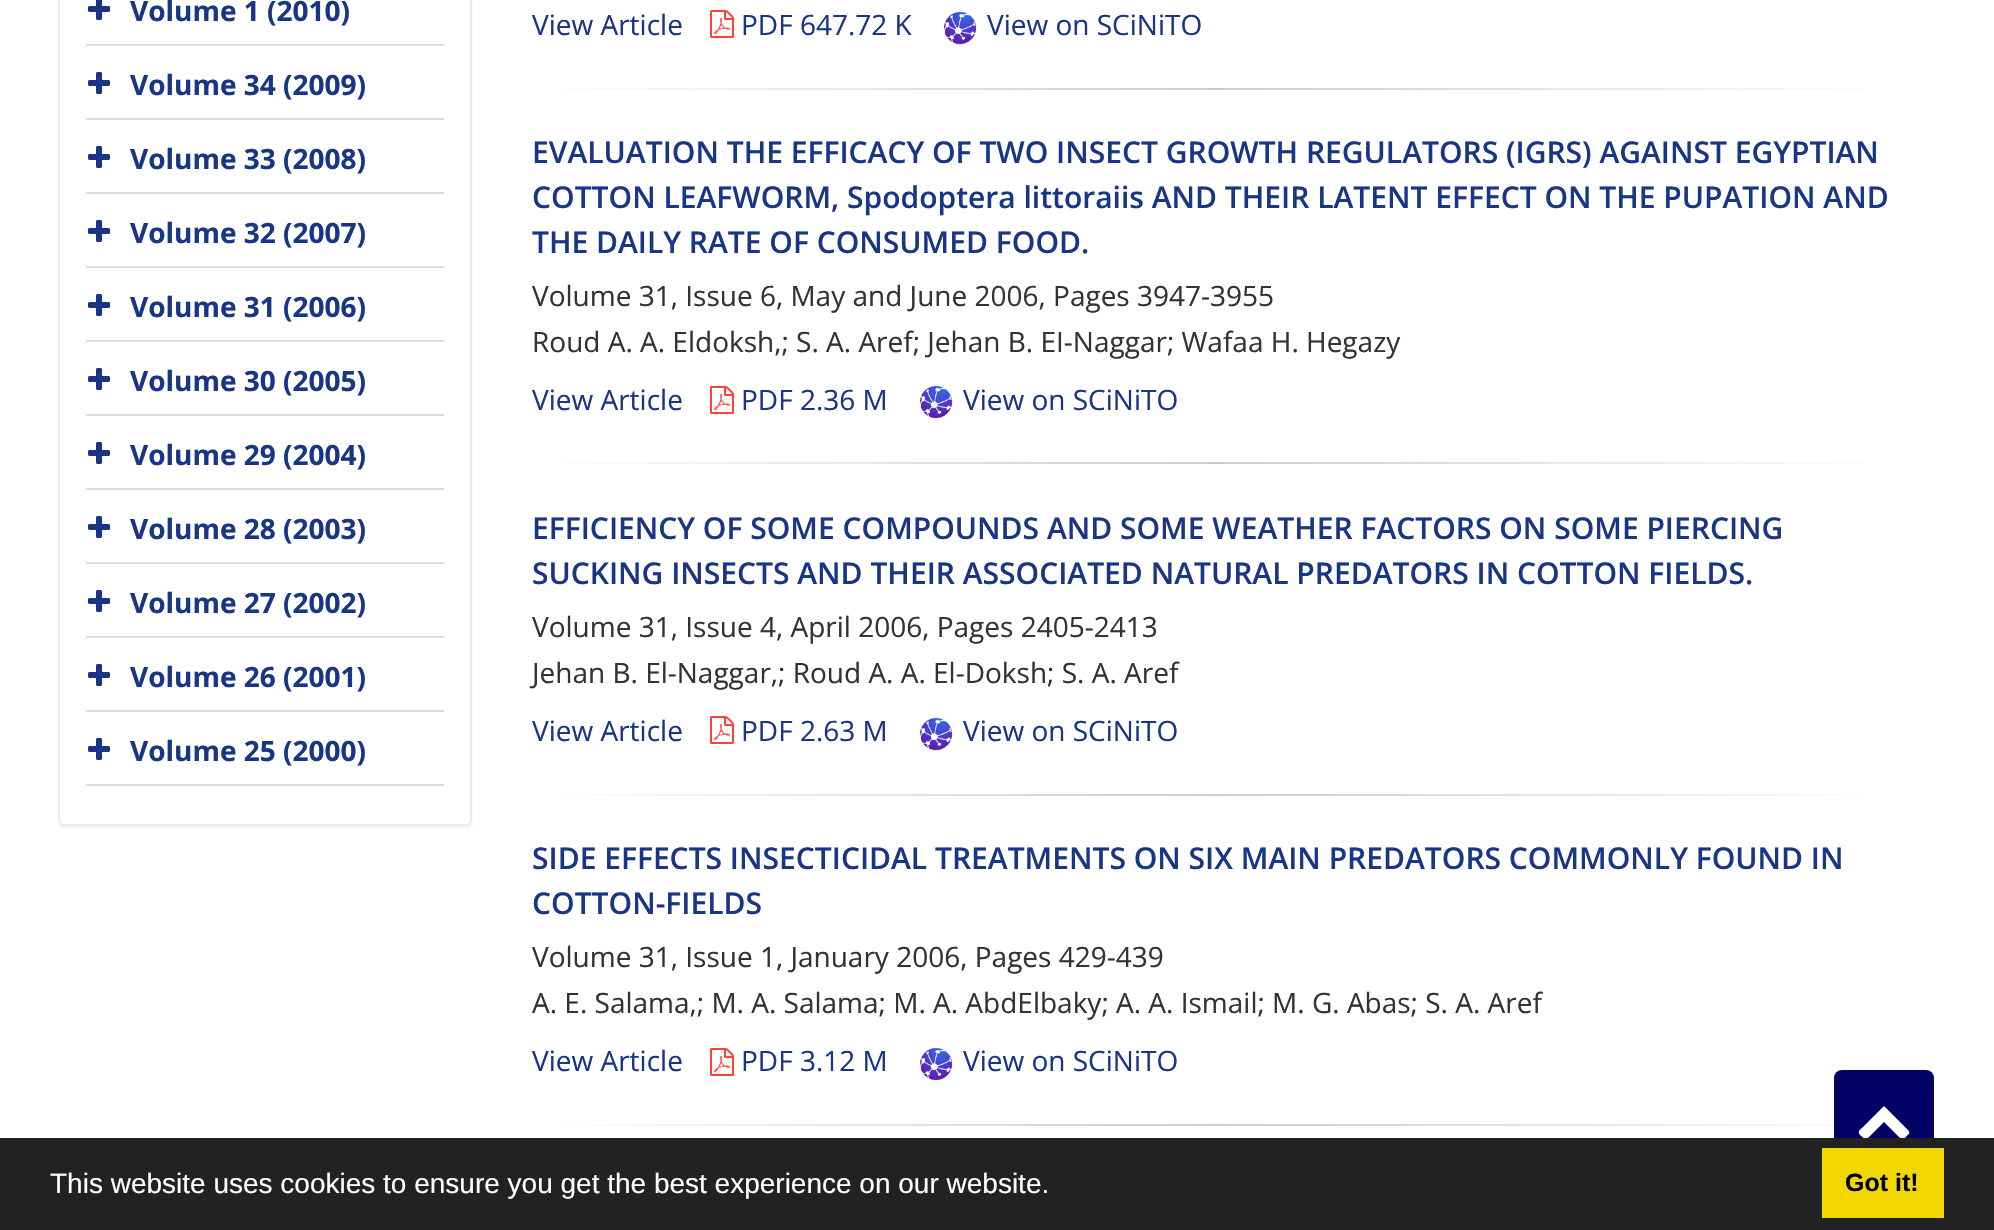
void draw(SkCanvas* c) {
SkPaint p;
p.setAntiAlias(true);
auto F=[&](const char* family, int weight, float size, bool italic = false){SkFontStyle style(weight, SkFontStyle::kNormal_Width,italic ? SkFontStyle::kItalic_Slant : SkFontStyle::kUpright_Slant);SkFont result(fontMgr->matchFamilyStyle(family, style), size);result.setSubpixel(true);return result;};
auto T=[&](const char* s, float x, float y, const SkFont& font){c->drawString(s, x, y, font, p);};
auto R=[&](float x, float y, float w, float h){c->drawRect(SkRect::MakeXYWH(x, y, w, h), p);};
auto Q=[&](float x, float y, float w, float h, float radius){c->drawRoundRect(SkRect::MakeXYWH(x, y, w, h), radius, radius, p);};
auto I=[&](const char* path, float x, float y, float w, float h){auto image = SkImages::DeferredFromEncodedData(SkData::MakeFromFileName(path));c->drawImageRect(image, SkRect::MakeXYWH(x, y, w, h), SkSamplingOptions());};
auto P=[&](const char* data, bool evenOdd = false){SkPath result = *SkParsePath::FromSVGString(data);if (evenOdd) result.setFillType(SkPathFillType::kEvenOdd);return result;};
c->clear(0xffffffff);
p.setColor(0x0d000000);
p.setMaskFilter(SkMaskFilter::MakeBlur(kNormal_SkBlurStyle, 1));
c->drawRoundRect(SkRect::MakeXYWH(58,-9,414,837),6,6,p);
p.setMaskFilter(nullptr);
p.setColor(0xffffffff);
c->drawRoundRect(SkRect::MakeXYWH(59,-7,412,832),5,5,p);
p.setStroke(true);
p.setStrokeWidth(2);
p.setColor(0xffe3eef1);
c->drawRoundRect(SkRect::MakeXYWH(59,-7,412,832),5,5,p);
p.setStroke(false);
p.setColor(0xffdddddd);
R(86,44,358,2);
I("1.png",88,0,22,20);
auto f1 = F("Open Sans",700,28);
p.setColor(0xff183586);
T("Volume 1 (2010)",130,21,f1);
p.setColor(0xffdddddd);
R(86,118,358,2);
I("2.png",88,72,22,22);
p.setColor(0xff183586);
T("Volume 34 (2009)",130,95,f1);
p.setColor(0xffdddddd);
R(86,192,358,2);
I("2.png",88,146,22,22);
p.setColor(0xff183586);
T("Volume 33 (2008)",130,169,f1);
p.setColor(0xffdddddd);
R(86,266,358,2);
I("2.png",88,220,22,22);
p.setColor(0xff183586);
T("Volume 32 (2007)",130,243,f1);
p.setColor(0xffdddddd);
R(86,340,358,2);
I("2.png",88,294,22,22);
p.setColor(0xff183586);
T("Volume 31 (2006)",130,317,f1);
p.setColor(0xffdddddd);
R(86,414,358,2);
I("2.png",88,368,22,22);
p.setColor(0xff183586);
T("Volume 30 (2005)",130,391,f1);
p.setColor(0xffdddddd);
R(86,488,358,2);
I("2.png",88,442,22,22);
p.setColor(0xff183586);
T("Volume 29 (2004)",130,465,f1);
p.setColor(0xffdddddd);
R(86,562,358,2);
I("2.png",88,516,22,22);
p.setColor(0xff183586);
T("Volume 28 (2003)",130,539,f1);
p.setColor(0xffdddddd);
R(86,636,358,2);
I("2.png",88,590,22,22);
p.setColor(0xff183586);
T("Volume 27 (2002)",130,613,f1);
p.setColor(0xffdddddd);
R(86,710,358,2);
I("2.png",88,664,22,22);
p.setColor(0xff183586);
T("Volume 26 (2001)",130,687,f1);
p.setColor(0xffdddddd);
R(86,784,358,2);
I("2.png",88,738,22,22);
p.setColor(0xff183586);
T("Volume 25 (2000)",130,761,f1);
auto f2 = F("Open Sans",400,28);
T("View Article",532,35,f2);
I("3.png",710,10,24,28);
T("PDF 647.72 K",741,35,f2);
I("4.png",943,11,34,34);
T("View on SCiNiTO",987,35,f2);
{
const SkColor colors[] = {0xffffffff,0xffcccccc,0xffffffff};
const float stops[] = {0,.5,1};
const SkPoint ends[] = {{532,89}, {1898,89}};
p.setShader(SkGradientShader::MakeLinear(ends, colors, stops, 3, SkTileMode::kClamp));
p.setAlpha(255);
}
R(566,88,1299,2);
auto f3 = F("Open Sans",600,30);
p.setShader(nullptr);
p.setColor(0xff183586);
T("EVALUATION THE EFFICACY OF TWO INSECT GROWTH REGULATORS (IGRS) AGAINST EGYPTIAN",532,163,f3);
T("COTTON LEAFWORM, Spodoptera littoraiis AND THEIR LATENT EFFECT ON THE PUPATION AND",532,208,f3);
T("THE DAILY RATE OF CONSUMED FOOD.",532,253,f3);
p.setColor(0xff333333);
T("Volume 31, Issue 6, May and June 2006, Pages 3947-3955",532,306,f2);
T("Roud A. A. Eldoksh,; S. A. Aref; Jehan B. EI-Naggar; Wafaa H. Hegazy",532,352,f2);
p.setColor(0xff183586);
T("View Article",532,410,f2);
I("3.png",710,386,24,28);
T("PDF 2.36 M",741,410,f2);
I("4.png",919,385,34,34);
T("View on SCiNiTO",963,410,f2);
{
const SkColor colors[] = {0xffffffff,0xffcccccc,0xffffffff};
const float stops[] = {0,.5,1};
const SkPoint ends[] = {{532,463}, {1898,463}};
p.setShader(SkGradientShader::MakeLinear(ends, colors, stops, 3, SkTileMode::kClamp));
p.setAlpha(255);
}
R(566,462,1299,2);
p.setShader(nullptr);
p.setColor(0xff183586);
T("EFFICIENCY OF SOME COMPOUNDS AND SOME WEATHER FACTORS ON SOME PIERCING",532,539,f3);
T("SUCKING INSECTS AND THEIR ASSOCIATED NATURAL PREDATORS IN COTTON FIELDS.",532,584,f3);
p.setColor(0xff333333);
T("Volume 31, Issue 4, April 2006, Pages 2405-2413",532,637,f2);
T("Jehan B. El-Naggar,; Roud A. A. El-Doksh; S. A. Aref",532,683,f2);
p.setColor(0xff183586);
T("View Article",532,741,f2);
I("3.png",710,716,24,28);
T("PDF 2.63 M",741,741,f2);
I("4.png",919,717,34,34);
T("View on SCiNiTO",963,741,f2);
{
const SkColor colors[] = {0xffffffff,0xffcccccc,0xffffffff};
const float stops[] = {0,.5,1};
const SkPoint ends[] = {{532,795}, {1898,795}};
p.setShader(SkGradientShader::MakeLinear(ends, colors, stops, 3, SkTileMode::kClamp));
p.setAlpha(255);
}
R(566,794,1299,2);
p.setShader(nullptr);
p.setColor(0xff183586);
T("SIDE EFFECTS INSECTICIDAL TREATMENTS ON SIX MAIN PREDATORS COMMONLY FOUND IN",532,869,f3);
T("COTTON-FIELDS",532,914,f3);
p.setColor(0xff333333);
T("Volume 31, Issue 1, January 2006, Pages 429-439",532,967,f2);
T("A. E. Salama,; M. A. Salama; M. A. AbdElbaky; A. A. Ismail; M. G. Abas; S. A. Aref",532,1013,f2);
p.setColor(0xff183586);
T("View Article",532,1071,f2);
I("3.png",710,1048,24,28);
T("PDF 3.12 M",741,1071,f2);
I("4.png",919,1047,34,34);
T("View on SCiNiTO",963,1071,f2);
{
const SkColor colors[] = {0xffffffff,0xffcccccc,0xffffffff};
const float stops[] = {0,.5,1};
const SkPoint ends[] = {{532,1125}, {1898,1125}};
p.setShader(SkGradientShader::MakeLinear(ends, colors, stops, 3, SkTileMode::kClamp));
p.setAlpha(255);
}
R(566,1124,1268,2);
p.setShader(nullptr);
p.setColor(0xff000066);
Q(1834,1070,100,100,8);
p.setColor(0xffffffff);
c->drawPath(P("M1909 1134c-6 5-5 8-11 2l-14-14l-14 14c-5 5-4 4-10-1c-3-4 0-5 3-8l16-16c6-6 4-6 10 0l16 16c0 1 6 4 4 7z"),p);
p.setColor(0xff222222);
R(0,1138,1994,92);
auto f4 = F("Liberation Sans",400,28);
p.setColor(0xffffffff);
T("This website uses cookies to ensure you get the best experience on our website.",50,1193,f4);
p.setColor(0xfff1d600);
R(1822,1148,122,70);
auto f5 = F("Liberation Sans",700,25);
p.setColor(0xff000000);
T("Got it!",1845,1191,f5);
}
